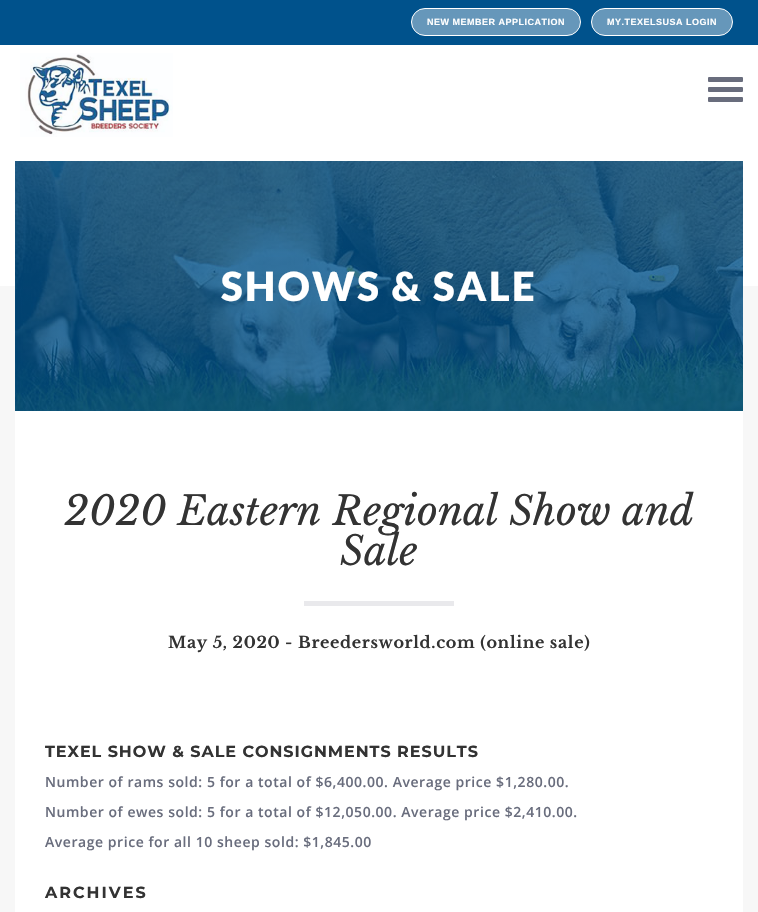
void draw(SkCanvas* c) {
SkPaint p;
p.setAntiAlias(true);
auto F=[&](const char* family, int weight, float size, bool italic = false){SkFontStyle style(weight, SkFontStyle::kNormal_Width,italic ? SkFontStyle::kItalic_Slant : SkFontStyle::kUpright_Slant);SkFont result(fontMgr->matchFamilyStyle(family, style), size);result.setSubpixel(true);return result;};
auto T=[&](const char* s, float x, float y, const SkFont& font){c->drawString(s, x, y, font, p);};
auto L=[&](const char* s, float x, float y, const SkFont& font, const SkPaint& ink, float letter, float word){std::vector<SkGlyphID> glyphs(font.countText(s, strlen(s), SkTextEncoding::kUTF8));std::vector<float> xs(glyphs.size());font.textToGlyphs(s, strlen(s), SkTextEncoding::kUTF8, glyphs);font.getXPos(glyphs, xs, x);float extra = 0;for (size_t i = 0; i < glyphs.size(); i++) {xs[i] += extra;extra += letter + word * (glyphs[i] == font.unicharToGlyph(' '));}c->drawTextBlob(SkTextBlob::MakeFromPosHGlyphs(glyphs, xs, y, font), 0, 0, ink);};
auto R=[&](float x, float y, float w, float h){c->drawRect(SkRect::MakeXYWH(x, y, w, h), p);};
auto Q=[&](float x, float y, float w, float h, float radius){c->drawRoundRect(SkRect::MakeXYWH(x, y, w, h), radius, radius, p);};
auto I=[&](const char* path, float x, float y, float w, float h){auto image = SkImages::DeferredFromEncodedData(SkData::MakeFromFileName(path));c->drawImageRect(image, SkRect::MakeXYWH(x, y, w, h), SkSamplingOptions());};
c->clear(0xffffffff);
p.setColor(0xff00528c);
R(0,0,758,45);
p.setColor(0xff6697ba);
c->drawRoundRect(SkRect::MakeXYWH(411.5,8.5,169,27),13.5,13.5,p);
p.setStroke(true);
p.setStrokeWidth(1);
p.setColor(0xffffffff);
c->drawRoundRect(SkRect::MakeXYWH(411.5,8.5,169,27),13.5,13.5,p);
auto f1 = F("Liberation Sans",700,9);
p.setStroke(false);
L("NEW MEMBER APPLICATION",427,25,f1,p,.5,0);
p.setColor(0xff6697ba);
c->drawRoundRect(SkRect::MakeXYWH(591.5,8.5,141,27),13.5,13.5,p);
p.setStroke(true);
p.setColor(0xffffffff);
c->drawRoundRect(SkRect::MakeXYWH(591.5,8.5,141,27),13.5,13.5,p);
p.setStroke(false);
L("MY.TEXELSUSA LOGIN",607,25,f1,p,.5,0);
I("1.png",20,53,153,84);
p.setColor(0xff696d7d);
Q(708,87,35,5,1);
Q(708,77,35,5,1);
Q(708,97,35,5,1);
p.setColor(0xfff7f7f7);
R(0,286,758,626);
I("2.png",15,161,728,250);
auto f2 = F("Lato",900,40);
p.setColor(0xffffffff);
L("SHOWS & SALE",221,301,f2,p,2.4,0);
R(15,411,728,501);
auto f3 = F("Libre Baskerville",400,40,true);
p.setColor(0xff333333);
T("2020 Eastern Regional Show and",64,525,f3);
T("Sale",340,565,f3);
p.setColor(0xffe9e9ec);
R(304,601,150,5);
auto f4 = F("Libre Baskerville",700,16);
p.setColor(0xff333333);
L("May 5, 2020 - Breedersworld.com (online sale)",168,648,f4,p,.65,0);
auto f5 = F("Montserrat",700,16);
L("TEXEL SHOW & SALE CONSIGNMENTS RESULTS",45,757,f5,p,.95,0);
auto f6 = F("Open Sans",600,14);
p.setColor(0xff696d7d);
L("Number of rams sold: 5 for a total of $6,400.00. Average price $1,280.00.",45,787,f6,p,.55,0);
L("Number of ewes sold: 5 for a total of $12,050.00. Average price $2,410.00.",45,817,f6,p,.55,0);
L("Average price for all 10 sheep sold: $1,845.00",45,847,f6,p,.55,0);
p.setColor(0xff333333);
L("ARCHIVES",45,898,f5,p,2,0);
}
